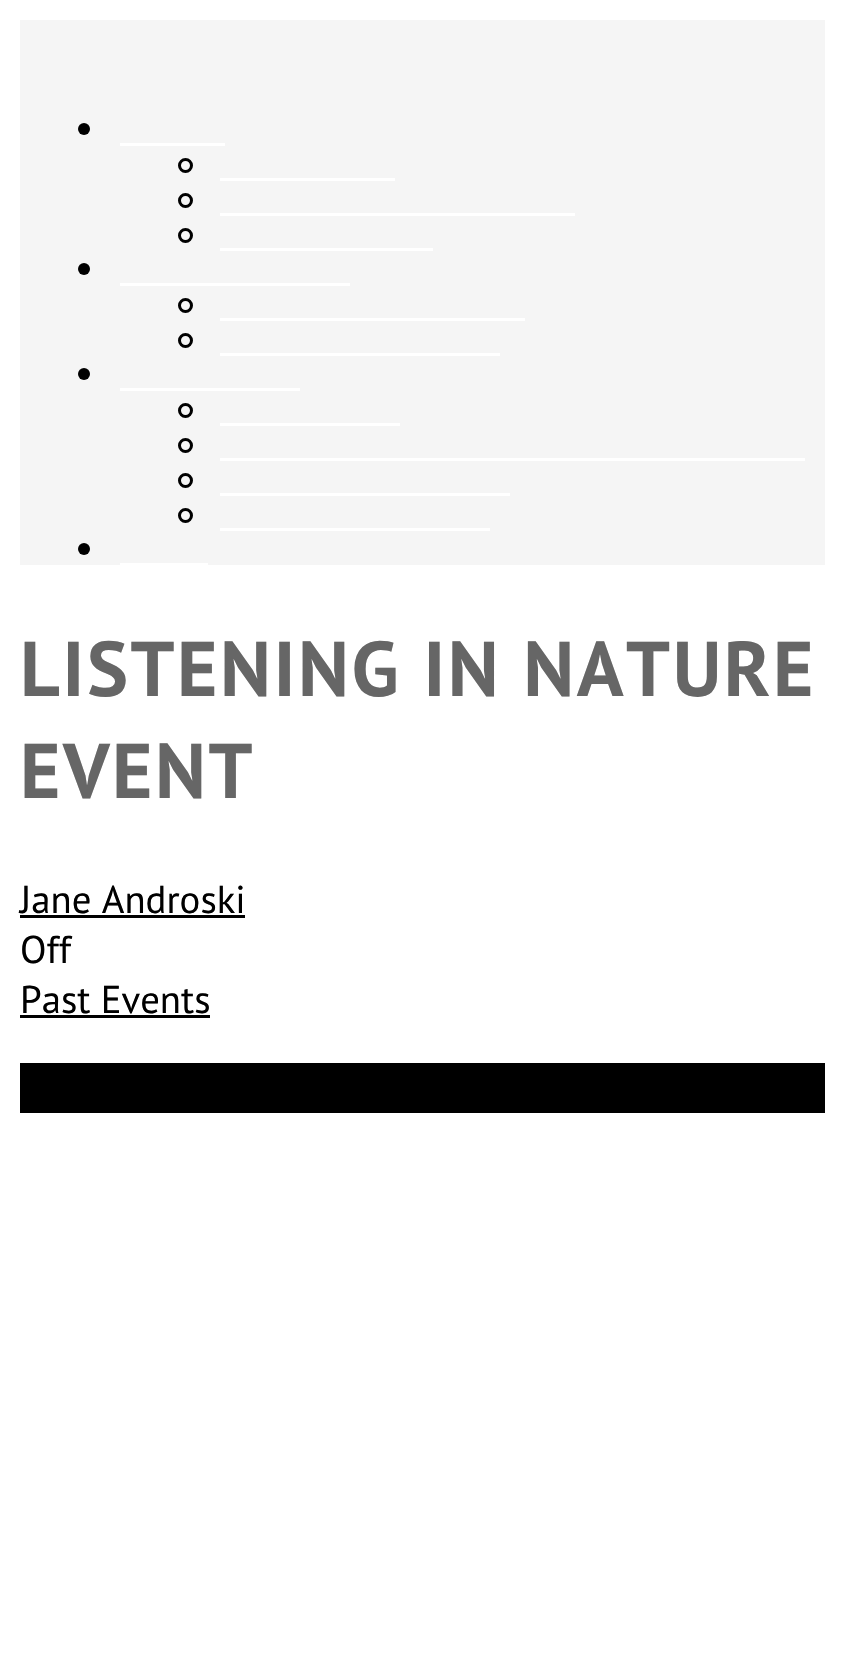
void draw(SkCanvas* c) {
SkPaint p;
p.setAntiAlias(true);
auto F=[&](const char* family, int weight, float size, bool italic = false){SkFontStyle style(weight, SkFontStyle::kNormal_Width,italic ? SkFontStyle::kItalic_Slant : SkFontStyle::kUpright_Slant);SkFont result(fontMgr->matchFamilyStyle(family, style), size);result.setSubpixel(true);return result;};
auto T=[&](const char* s, float x, float y, const SkFont& font){c->drawString(s, x, y, font, p);};
auto L=[&](const char* s, float x, float y, const SkFont& font, const SkPaint& ink, float letter, float word){std::vector<SkGlyphID> glyphs(font.countText(s, strlen(s), SkTextEncoding::kUTF8));std::vector<float> xs(glyphs.size());font.textToGlyphs(s, strlen(s), SkTextEncoding::kUTF8, glyphs);font.getXPos(glyphs, xs, x);float extra = 0;for (size_t i = 0; i < glyphs.size(); i++) {xs[i] += extra;extra += letter + word * (glyphs[i] == font.unicharToGlyph(' '));}c->drawTextBlob(SkTextBlob::MakeFromPosHGlyphs(glyphs, xs, y, font), 0, 0, ink);};
auto R=[&](float x, float y, float w, float h){c->drawRect(SkRect::MakeXYWH(x, y, w, h), p);};
c->clear(0xffffffff);
p.setColor(0xfff5f5f5);
R(20,20,805,545);
p.setColor(0xff000000);
c->drawCircle(84,129,6,p);
p.setColor(0xffffffff);
R(120,143,105,3);
p.setStroke(true);
p.setStrokeWidth(3);
p.setColor(0xff000000);
c->drawCircle(185.5,165.5,6,p);
p.setStroke(false);
p.setColor(0xffffffff);
R(220,178,175,3);
p.setStroke(true);
p.setColor(0xff000000);
c->drawCircle(185.5,200.5,6,p);
p.setStroke(false);
p.setColor(0xffffffff);
R(220,213,355,3);
p.setStroke(true);
p.setColor(0xff000000);
c->drawCircle(185.5,235.5,6,p);
p.setStroke(false);
p.setColor(0xffffffff);
R(220,248,213,3);
p.setColor(0xff000000);
c->drawCircle(84,269,6,p);
p.setColor(0xffffffff);
R(120,283,230,3);
p.setStroke(true);
p.setColor(0xff000000);
c->drawCircle(185.5,305.5,6,p);
p.setStroke(false);
p.setColor(0xffffffff);
R(220,318,305,3);
p.setStroke(true);
p.setColor(0xff000000);
c->drawCircle(185.5,340.5,6,p);
p.setStroke(false);
p.setColor(0xffffffff);
R(220,353,280,3);
p.setColor(0xff000000);
c->drawCircle(84,374,6,p);
p.setColor(0xffffffff);
R(120,388,180,3);
p.setStroke(true);
p.setColor(0xff000000);
c->drawCircle(185.5,410.5,6,p);
p.setStroke(false);
p.setColor(0xffffffff);
R(220,423,180,3);
p.setStroke(true);
p.setColor(0xff000000);
c->drawCircle(185.5,445.5,6,p);
p.setStroke(false);
p.setColor(0xffffffff);
R(220,458,585,3);
p.setStroke(true);
p.setColor(0xff000000);
c->drawCircle(185.5,480.5,6,p);
p.setStroke(false);
p.setColor(0xffffffff);
R(220,493,290,3);
p.setStroke(true);
p.setColor(0xff000000);
c->drawCircle(185.5,515.5,6,p);
p.setStroke(false);
p.setColor(0xffffffff);
R(220,528,270,3);
p.setColor(0xff000000);
c->drawCircle(84,549,6,p);
p.setColor(0xffffffff);
R(120,563,88,2);
auto f1 = F("PT Sans",700,77.5);
p.setColor(0xff666666);
L("LISTENING IN NATURE",20,696,f1,p,2.5,0);
L("EVENT",20,798,f1,p,2.5,0);
auto f2 = F("PT Sans",400,38.75);
p.setColor(0xff000000);
T("Jane Androski",20,913,f2);
R(20,915,225,3);
T("Off",20,963,f2);
T("Past Events",20,1013,f2);
R(20,1015,190,3);
R(20,1063,805,50);
}
